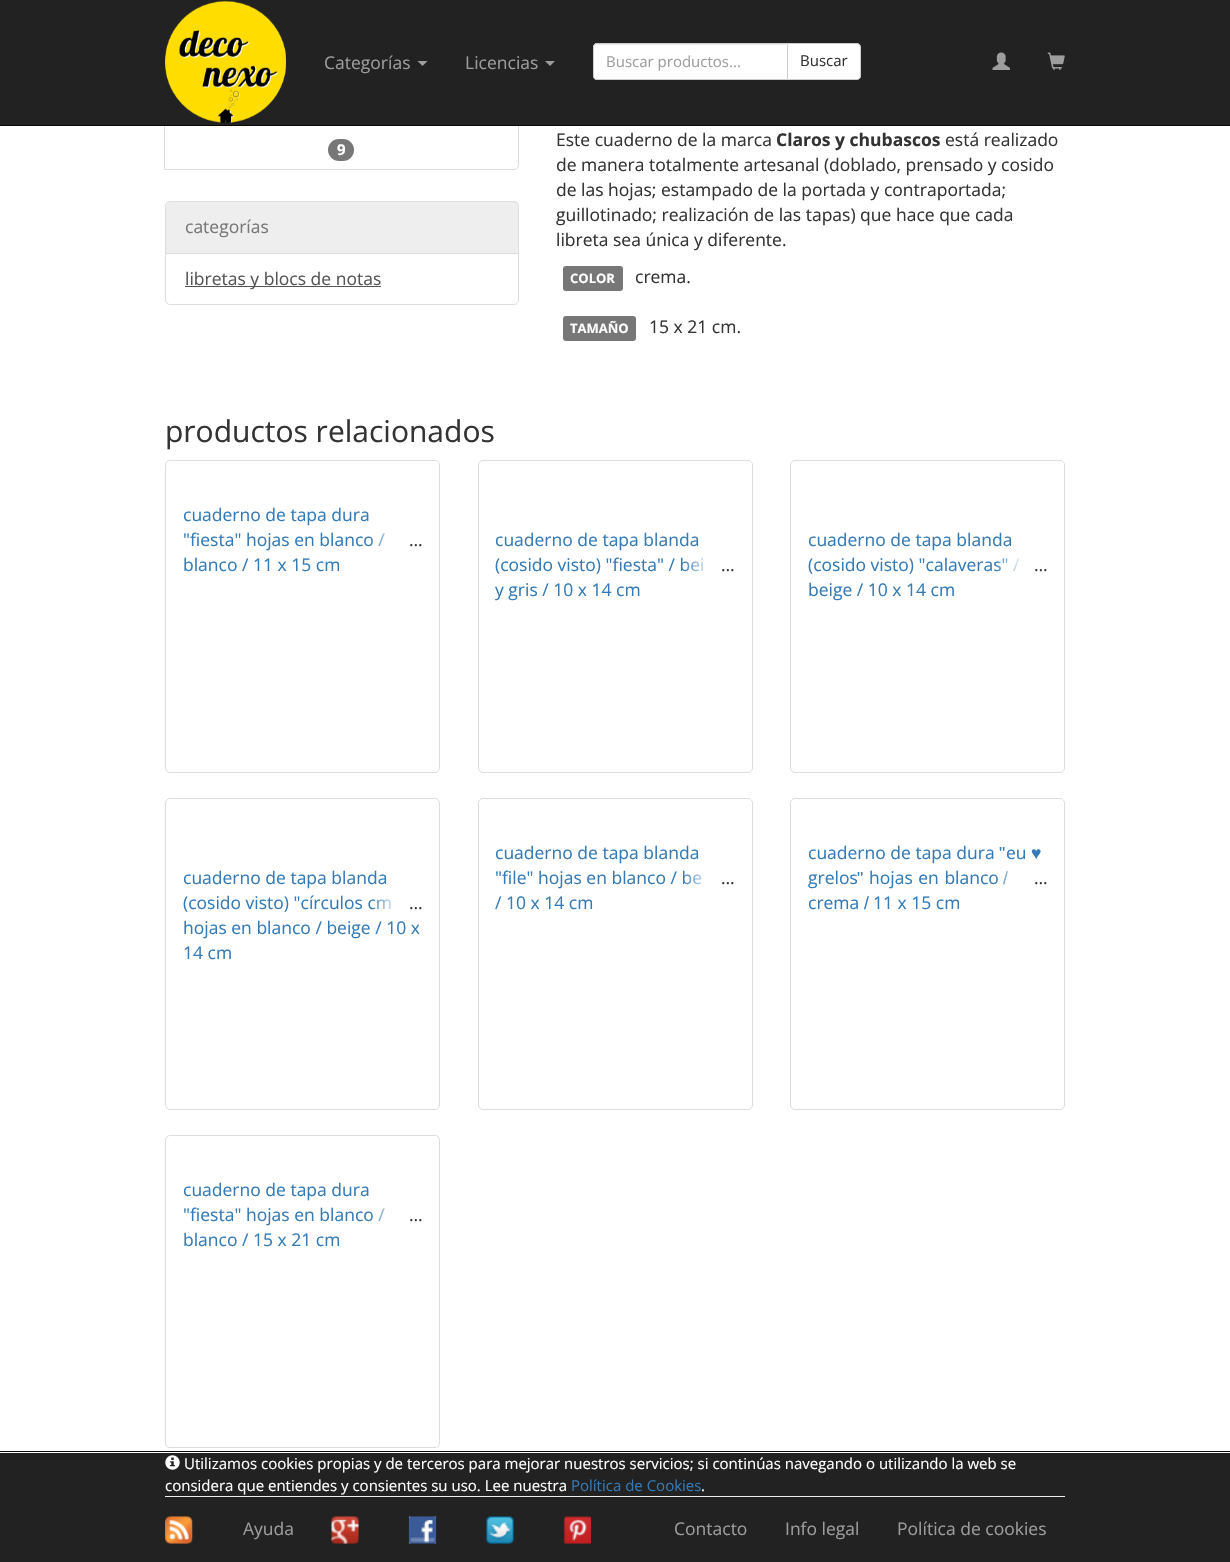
void draw(SkCanvas* c) {
SkPaint p;
p.setAntiAlias(true);
auto F=[&](const char* family, int weight, float size, bool italic = false){SkFontStyle style(weight, SkFontStyle::kNormal_Width,italic ? SkFontStyle::kItalic_Slant : SkFontStyle::kUpright_Slant);SkFont result(fontMgr->matchFamilyStyle(family, style), size);result.setSubpixel(true);return result;};
auto T=[&](const char* s, float x, float y, const SkFont& font){c->drawString(s, x, y, font, p);};
auto L=[&](const char* s, float x, float y, const SkFont& font, const SkPaint& ink, float letter, float word){std::vector<SkGlyphID> glyphs(font.countText(s, strlen(s), SkTextEncoding::kUTF8));std::vector<float> xs(glyphs.size());font.textToGlyphs(s, strlen(s), SkTextEncoding::kUTF8, glyphs);font.getXPos(glyphs, xs, x);float extra = 0;for (size_t i = 0; i < glyphs.size(); i++) {xs[i] += extra;extra += letter + word * (glyphs[i] == font.unicharToGlyph(' '));}c->drawTextBlob(SkTextBlob::MakeFromPosHGlyphs(glyphs, xs, y, font), 0, 0, ink);};
auto R=[&](float x, float y, float w, float h){c->drawRect(SkRect::MakeXYWH(x, y, w, h), p);};
auto Q=[&](float x, float y, float w, float h, float radius){c->drawRoundRect(SkRect::MakeXYWH(x, y, w, h), radius, radius, p);};
auto I=[&](const char* path, float x, float y, float w, float h){auto image = SkImages::DeferredFromEncodedData(SkData::MakeFromFileName(path));c->drawImageRect(image, SkRect::MakeXYWH(x, y, w, h), SkSamplingOptions());};
auto P=[&](const char* data, bool evenOdd = false){SkPath result = *SkParsePath::FromSVGString(data);if (evenOdd) result.setFillType(SkPathFillType::kEvenOdd);return result;};
c->clear(0xffffffff);
p.setStroke(true);
p.setStrokeWidth(1);
p.setColor(0xffdddddd);
c->drawPath(P("M164.5 53.5h349.5c2.5 0 4.5 2 4.5 4.5v107c0 2.5-2 4.5-4.5 4.5h-349.5z"),p);
p.setStroke(false);
p.setColor(0xff222222);
R(0,0,1230,125);
p.setColor(0xff080808);
R(0,125,1230,1);
I("1.png",165,0,121,123);
auto f1 = F("Open Sans",400,17.5);
p.setColor(0xff9d9d9d);
T("Categorías",324,69,f1);
c->drawPath(P("M417.5 61h10l-5 5z"),p);
T("Licencias",465,69,f1);
c->drawPath(P("M545 61h10l-5 5z"),p);
p.setColor(0xffffffff);
c->drawPath(P("M786.5 43.5h70.5c2 0 3.5 1.5 3.5 3.5v29c0 2-1.5 3.5-3.5 3.5h-70.5z"),p);
p.setStroke(true);
p.setColor(0xffcccccc);
c->drawPath(P("M786.5 43.5h70.5c2 0 3.5 1.5 3.5 3.5v29c0 2-1.5 3.5-3.5 3.5h-70.5z"),p);
p.setStroke(false);
p.setColor(0xffffffff);
c->drawPath(P("M597 43h191v37h-191c-2 0-4-2-4-4v-29c0-2 2-4 4-4z"),p);
p.setColor(0xffececec);
c->drawPath(P("M596 45h190v-1h-190c-2 0-2 2-2 4c0-2 1-3 2-3z"),p);
p.setStroke(true);
p.setColor(0xffcccccc);
c->drawPath(P("M597 43.5h190.5v36h-190.5c-2 0-3.5-1.5-3.5-3.5v-29c0-2 1.5-3.5 3.5-3.5z"),p);
auto f2 = F("Open Sans",400,15);
p.setStroke(false);
p.setColor(0xff9d9d9d);
T("Buscar productos...",606,67,f2);
p.setColor(0xff333333);
T("Buscar",800,66,f2);
I("2.png",992,52,18,18);
I("3.png",1047,52,18,18);
p.setColor(0xff777777);
Q(328,139,26,22,11);
auto f3 = F("Open Sans",700,15);
p.setColor(0xffffffff);
T("9",337,155,f3);
p.setColor(0xffeeeeee);
c->drawPath(P("M170 201.5h344c2.5 0 4.5 2 4.5 4.5v47.5h-353v-47.5c0-2.5 2-4.5 4.5-4.5z"),p);
p.setStroke(true);
p.setColor(0xffdddddd);
c->drawPath(P("M170 201.5h344c2.5 0 4.5 2 4.5 4.5v47.5h-353v-47.5c0-2.5 2-4.5 4.5-4.5z"),p);
p.setStroke(false);
p.setColor(0xff777777);
T("categorías",185,233,f1);
p.setColor(0xffffffff);
c->drawPath(P("M165.5 253.5h353v46.5c0 2.5-2 4.5-4.5 4.5h-344c-2.5 0-4.5-2-4.5-4.5z"),p);
p.setStroke(true);
p.setColor(0xffdddddd);
c->drawPath(P("M165.5 253.5h353v46.5c0 2.5-2 4.5-4.5 4.5h-344c-2.5 0-4.5-2-4.5-4.5z"),p);
p.setStroke(false);
p.setColor(0xff555555);
R(185,286,196,1);
T("libretas y blocs de notas",185,285,f1);
p.setColor(0xff333333);
T("Este cuaderno de la marca",556,146,f1);
auto f4 = F("Open Sans",700,17.5);
T("Claros y chubascos",776,146,f4);
T("está realizado",945,146,f1);
T("de manera totalmente artesanal (doblado, prensado y cosido",556,171,f1);
T("de las hojas; estampado de la portada y contraportada;",556,196,f1);
T("guillotinado; realización de las tapas) que hace que cada",556,221,f1);
T("libreta sea única y diferente.",556,246,f1);
p.setColor(0xff777777);
Q(563,266,60,25,3);
auto f5 = F("Open Sans",700,13);
p.setColor(0xffffffff);
T("COLOR",570,283,f5);
p.setColor(0xff333333);
T("crema.",635,283,f1);
p.setColor(0xff777777);
Q(563,316,73,25,3);
p.setColor(0xffffffff);
T("TAMAÑO",570,333,f5);
p.setColor(0xff333333);
T("15 x 21 cm.",649,333,f1);
auto f6 = F("Open Sans",400,30);
T("productos relacionados",165,442,f6);
p.setStroke(true);
p.setColor(0xffdddddd);
c->drawRoundRect(SkRect::MakeXYWH(165.5,460.5,274,312),4.5,4.5,p);
p.setStroke(false);
p.setColor(0xff337ab7);
T("cuaderno de tapa dura",183,521,f1);
T("\"fiesta\" hojas en blanco /",183,546,f1);
T("blanco / 11 x 15 cm",183,571,f1);
{
const SkColor colors[] = {0x00ffffff,0xffffffff,0xffffffff};
const float stops[] = {0,.5,1};
const SkPoint ends[] = {{370,540}, {429,540}};
p.setShader(SkGradientShader::MakeLinear(ends, colors, stops, 3, SkTileMode::kClamp));
p.setAlpha(255);
}
R(371,533,13,13);
p.setShader(nullptr);
p.setColor(0xff333333);
T("…",409,546,f1);
p.setStroke(true);
p.setColor(0xffdddddd);
c->drawRoundRect(SkRect::MakeXYWH(478.5,460.5,274,312),4.5,4.5,p);
p.setStroke(false);
p.setColor(0xff337ab7);
T("cuaderno de tapa blanda",495,546,f1);
T("(cosido visto) \"fiesta\" / bei",495,571,f1);
T("y gris / 10 x 14 cm",495,596,f1);
{
const SkColor colors[] = {0x00ffffff,0xffffffff,0xffffffff};
const float stops[] = {0,.5,1};
const SkPoint ends[] = {{683,565}, {741,565}};
p.setShader(SkGradientShader::MakeLinear(ends, colors, stops, 3, SkTileMode::kClamp));
p.setAlpha(255);
}
R(684,558,20,14);
p.setShader(nullptr);
p.setColor(0xff333333);
T("…",721,571,f1);
p.setStroke(true);
p.setColor(0xffdddddd);
c->drawRoundRect(SkRect::MakeXYWH(790.5,460.5,274,312),4.5,4.5,p);
p.setStroke(false);
p.setColor(0xff337ab7);
T("cuaderno de tapa blanda",808,546,f1);
T("(cosido visto) \"calaveras\" /",808,571,f1);
T("beige / 10 x 14 cm",808,596,f1);
{
const SkColor colors[] = {0x00ffffff,0xffffffff,0xffffffff};
const float stops[] = {0,.5,1};
const SkPoint ends[] = {{995,565}, {1054,565}};
p.setShader(SkGradientShader::MakeLinear(ends, colors, stops, 3, SkTileMode::kClamp));
p.setAlpha(255);
}
R(996,558,23,13);
p.setShader(nullptr);
p.setColor(0xff333333);
T("…",1034,571,f1);
p.setStroke(true);
p.setColor(0xffdddddd);
c->drawRoundRect(SkRect::MakeXYWH(165.5,798.5,274,311),4.5,4.5,p);
p.setStroke(false);
p.setColor(0xff337ab7);
T("cuaderno de tapa blanda",183,884,f1);
T("(cosido visto) \"círculos cm",183,909,f1);
T("hojas en blanco / beige / 10 x",183,934,f1);
T("14 cm",183,959,f1);
{
const SkColor colors[] = {0x00ffffff,0xffffffff,0xffffffff};
const float stops[] = {0,.5,1};
const SkPoint ends[] = {{370,903}, {429,903}};
p.setShader(SkGradientShader::MakeLinear(ends, colors, stops, 3, SkTileMode::kClamp));
p.setAlpha(255);
}
R(371,899,20,10);
p.setShader(nullptr);
p.setColor(0xff333333);
T("…",409,909,f1);
p.setStroke(true);
p.setColor(0xffdddddd);
c->drawRoundRect(SkRect::MakeXYWH(478.5,798.5,274,311),4.5,4.5,p);
p.setStroke(false);
p.setColor(0xff337ab7);
T("cuaderno de tapa blanda",495,859,f1);
T("\"file\" hojas en blanco / be",495,884,f1);
T("/ 10 x 14 cm",495,909,f1);
{
const SkColor colors[] = {0x00ffffff,0xffffffff,0xffffffff};
const float stops[] = {0,.5,1};
const SkPoint ends[] = {{683,878}, {741,878}};
p.setShader(SkGradientShader::MakeLinear(ends, colors, stops, 3, SkTileMode::kClamp));
p.setAlpha(255);
}
R(684,871,18,14);
p.setShader(nullptr);
p.setColor(0xff333333);
T("…",721,884,f1);
p.setStroke(true);
p.setColor(0xffdddddd);
c->drawRoundRect(SkRect::MakeXYWH(790.5,798.5,274,311),4.5,4.5,p);
p.setStroke(false);
p.setColor(0xff337ab7);
T("cuaderno de tapa dura",808,859,f1);
auto f7 = F("Liberation Sans",400,17.5);
T("\"",999,859,f7);
T("eu",1006,859,f1);
T("♥",1031,859,f7);
T("grelos",808,884,f1);
T("\"",857,884,f7);
L("hojas en blanco",869,884,f1,p,0,1);
T("/",1003,884,f7);
T("crema",808,909,f1);
T("/",864,909,f7);
T("11 x 15 cm",873,909,f1);
{
const SkColor colors[] = {0x00ffffff,0xffffffff,0xffffffff};
const float stops[] = {0,.5,1};
const SkPoint ends[] = {{995,878}, {1054,878}};
p.setShader(SkGradientShader::MakeLinear(ends, colors, stops, 3, SkTileMode::kClamp));
p.setAlpha(255);
}
R(996,871,12,14);
p.setShader(nullptr);
p.setColor(0xff333333);
T("…",1034,884,f1);
p.setStroke(true);
p.setColor(0xffdddddd);
c->drawRoundRect(SkRect::MakeXYWH(165.5,1135.5,274,312),4.5,4.5,p);
p.setStroke(false);
p.setColor(0xff337ab7);
T("cuaderno de tapa dura",183,1196,f1);
T("\"fiesta\" hojas en blanco /",183,1221,f1);
T("blanco / 15 x 21 cm",183,1246,f1);
{
const SkColor colors[] = {0x00ffffff,0xffffffff,0xffffffff};
const float stops[] = {0,.5,1};
const SkPoint ends[] = {{370,1215}, {429,1215}};
p.setShader(SkGradientShader::MakeLinear(ends, colors, stops, 3, SkTileMode::kClamp));
p.setAlpha(255);
}
R(371,1208,13,13);
p.setShader(nullptr);
p.setColor(0xff333333);
T("…",409,1221,f1);
p.setColor(0xff222222);
R(0,1453,1230,109);
p.setColor(0xff080808);
R(0,1451,1230,1);
p.setColor(0xffeeeeee);
R(165,1496,900,1);
I("4.png",165,1455,15,15);
p.setColor(0xffffffff);
T("Utilizamos cookies propias y de terceros para mejorar nuestros servicios; si continúas navegando o utilizando la web se",184,1469,f2);
T("considera que entiendes y consientes su uso. Lee nuestra",165,1491,f2);
p.setColor(0xff337ab7);
T("Política de Cookies",571,1491,f2);
p.setColor(0xffffffff);
T(".",701,1491,f2);
I("5.png",165,1516,28,28);
p.setColor(0xff9d9d9d);
T("Ayuda",243,1535,f1);
I("6.png",331,1516,28,28);
I("7.png",408,1516,29,28);
I("8.png",486,1516,28,28);
I("9.png",563,1516,29,28);
T("Contacto",674,1535,f1);
T("Info legal",785,1535,f1);
T("Política de cookies",897,1535,f1);
}
